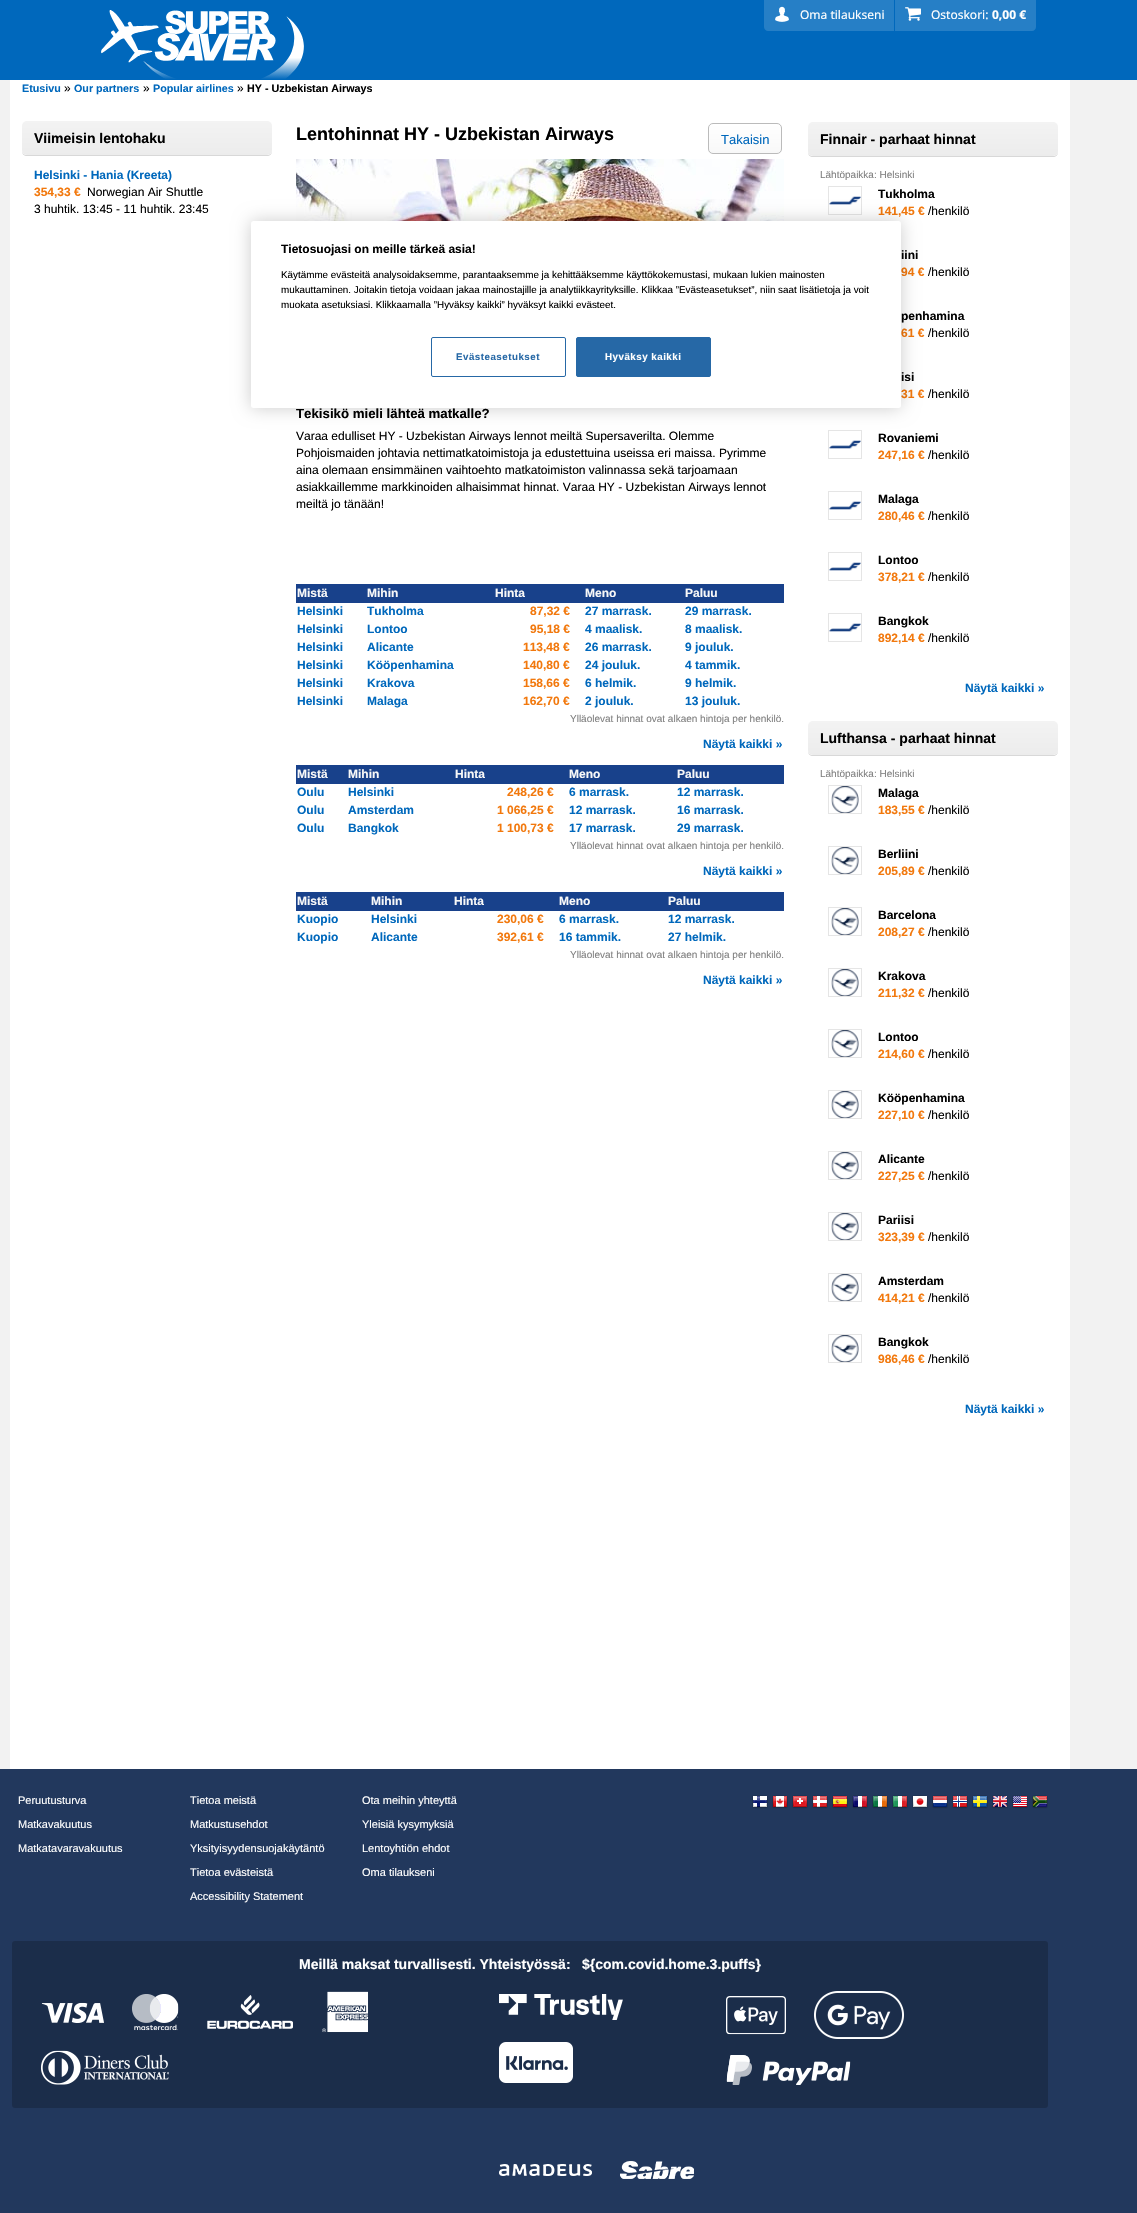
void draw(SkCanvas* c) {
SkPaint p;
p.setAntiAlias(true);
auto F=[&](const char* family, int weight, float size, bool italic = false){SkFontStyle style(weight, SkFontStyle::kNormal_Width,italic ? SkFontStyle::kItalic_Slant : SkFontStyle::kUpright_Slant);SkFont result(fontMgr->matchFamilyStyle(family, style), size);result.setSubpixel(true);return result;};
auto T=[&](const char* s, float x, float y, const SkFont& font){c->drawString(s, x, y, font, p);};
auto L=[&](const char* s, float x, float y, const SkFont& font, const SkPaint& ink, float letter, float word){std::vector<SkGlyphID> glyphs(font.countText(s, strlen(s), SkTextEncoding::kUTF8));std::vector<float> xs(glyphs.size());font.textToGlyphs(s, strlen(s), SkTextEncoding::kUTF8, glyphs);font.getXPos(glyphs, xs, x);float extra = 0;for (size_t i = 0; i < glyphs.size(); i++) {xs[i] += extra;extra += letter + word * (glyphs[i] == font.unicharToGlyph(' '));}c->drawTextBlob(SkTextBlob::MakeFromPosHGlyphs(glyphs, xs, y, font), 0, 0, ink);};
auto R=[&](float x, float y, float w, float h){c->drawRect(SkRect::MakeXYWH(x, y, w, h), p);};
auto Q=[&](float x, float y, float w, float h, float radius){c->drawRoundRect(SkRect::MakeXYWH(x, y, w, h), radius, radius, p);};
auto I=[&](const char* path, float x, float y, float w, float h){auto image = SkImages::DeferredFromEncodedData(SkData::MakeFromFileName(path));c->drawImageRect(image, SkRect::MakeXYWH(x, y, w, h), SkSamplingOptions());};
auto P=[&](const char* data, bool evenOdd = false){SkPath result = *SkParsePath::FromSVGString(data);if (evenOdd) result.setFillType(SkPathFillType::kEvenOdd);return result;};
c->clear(0xfff2f2f2);
p.setColor(0xff0068bc);
R(0,0,1137,80);
I("1.png",101,10,203,69);
p.setColor(0xff267fc6);
c->drawPath(P("M764 0h130v31h-126c-2 0-4-2-4-4z"),p);
I("2.png",775,6,14,16);
auto f1 = F("Noto Sans",400,12);
p.setColor(0xffffffff);
T("Oma tilaukseni",800,19,f1);
p.setColor(0xff267fc6);
c->drawPath(P("M895 0h141v27c0 2-2 4-4 4h-137z"),p);
I("3.png",905,7,16,14);
p.setColor(0xffffffff);
T("Ostoskori:",931,19,f1);
auto f2 = F("Noto Sans",700,12);
T("0,00 €",992,19,f2);
R(10,80,1060,1689);
auto f3 = F("Liberation Sans",700,10.75);
p.setColor(0xff0068bc);
T("Etusivu",22,92,f3);
auto f4 = F("Liberation Sans",400,12);
p.setColor(0xff000000);
T("»",64,92,f4);
p.setColor(0xff0068bc);
T("Our partners",74,92,f3);
p.setColor(0xff000000);
T("»",143,92,f4);
p.setColor(0xff0068bc);
T("Popular airlines",153,92,f3);
p.setColor(0xff000000);
T("»",237,92,f4);
T("HY - Uzbekistan Airways",247,92,f3);
p.setColor(0xffd8d8d8);
c->drawPath(P("M22 150v1c0 3 2 5 5 5h240c3 0 5-2 5-5v-1c0 3-2 5-5 5h-240c-3 0-5-2-5-5z"),p);
{
const SkColor colors[] = {0xfff3f3f3,0xffececec};
const float stops[] = {0,1};
const SkPoint ends[] = {{147,121}, {147,155}};
p.setShader(SkGradientShader::MakeLinear(ends, colors, stops, 2, SkTileMode::kClamp));
p.setAlpha(255);
}
Q(22,121,250,34,5);
auto f5 = F("Liberation Sans",700,14);
p.setShader(nullptr);
p.setColor(0xff000000);
T("Viimeisin lentohaku",34,143,f5);
auto f6 = F("Liberation Sans",700,12);
p.setColor(0xff0068bc);
T("Helsinki - Hania (Kreeta)",34,179,f6);
p.setColor(0xfff2780c);
T("354,33 €",34,196,f6);
p.setColor(0xff000000);
T("Norwegian Air Shuttle",87,196,f4);
T("3 huhtik. 13:45 - 11 huhtik. 23:45",34,213,f4);
auto f7 = F("Liberation Sans",700,18);
T("Lentohinnat HY - Uzbekistan Airways",296,140,f7);
c->save();
c->clipPath(P("M713 123h64c3 0 5 2 5 5v21c0 3-2 5-5 5h-64c-3 0-5-2-5-5v-21c0-3 2-5 5-5z"),true);
{
const SkColor colors[] = {0xffffffff,0xfff8f8f8};
const float stops[] = {0,1};
const SkPoint ends[] = {{745,124}, {745,153}};
p.setShader(SkGradientShader::MakeLinear(ends, colors, stops, 2, SkTileMode::kClamp));
p.setAlpha(255);
}
R(708,124,74,29);
c->restore();
p.setStroke(true);
p.setStrokeWidth(1);
p.setShader(nullptr);
p.setColor(0xffbbbbbb);
c->drawRoundRect(SkRect::MakeXYWH(708.5,123.5,73,30),4.5,4.5,p);
auto f8 = F("Liberation Sans",400,13);
p.setStroke(false);
p.setColor(0xff0068bc);
T("Takaisin",721,144,f8);
I("4.png",296,159,488,62);
auto f9 = F("Liberation Sans",700,13.25);
p.setColor(0xff000000);
T("Tekisikö mieli lähteä matkalle?",296,418,f9);
T("Varaa edulliset HY - Uzbekistan Airways lennot meiltä Supersaverilta. Olemme",296,440,f4);
T("Pohjoismaiden johtavia nettimatkatoimistoja ja edustettuina useissa eri maissa. Pyrimme",296,457,f4);
T("aina olemaan ensimmäinen vaihtoehto matkatoimiston valinnassa sekä tarjoamaan",296,474,f4);
T("asiakkaillemme markkinoiden alhaisimmat hinnat. Varaa HY - Uzbekistan Airways lennot",296,491,f4);
T("meiltä jo tänään!",296,508,f4);
p.setColor(0xff18418b);
R(296,584,488,19);
p.setColor(0xfff8f8f8);
T("Mistä",297,597,f6);
T("Mihin",367,597,f6);
T("Hinta",495,597,f6);
T("Meno",585,597,f6);
T("Paluu",685,597,f6);
p.setColor(0xff0068bc);
T("Helsinki",297,615,f6);
T("Tukholma",367,615,f6);
p.setColor(0xfff2780c);
T("87,32 €",530,615,f6);
p.setColor(0xff0068bc);
T("27 marrask.",585,615,f6);
T("29 marrask.",685,615,f6);
T("Helsinki",297,633,f6);
T("Lontoo",367,633,f6);
p.setColor(0xfff2780c);
T("95,18 €",530,633,f6);
p.setColor(0xff0068bc);
T("4 maalisk.",585,633,f6);
T("8 maalisk.",685,633,f6);
T("Helsinki",297,651,f6);
T("Alicante",367,651,f6);
p.setColor(0xfff2780c);
T("113,48 €",523,651,f6);
p.setColor(0xff0068bc);
T("26 marrask.",585,651,f6);
T("9 jouluk.",685,651,f6);
T("Helsinki",297,669,f6);
T("Kööpenhamina",367,669,f6);
p.setColor(0xfff2780c);
T("140,80 €",523,669,f6);
p.setColor(0xff0068bc);
T("24 jouluk.",585,669,f6);
T("4 tammik.",685,669,f6);
T("Helsinki",297,687,f6);
T("Krakova",367,687,f6);
p.setColor(0xfff2780c);
T("158,66 €",523,687,f6);
p.setColor(0xff0068bc);
T("6 helmik.",585,687,f6);
T("9 helmik.",685,687,f6);
T("Helsinki",297,705,f6);
T("Malaga",367,705,f6);
p.setColor(0xfff2780c);
T("162,70 €",523,705,f6);
p.setColor(0xff0068bc);
T("2 jouluk.",585,705,f6);
T("13 jouluk.",685,705,f6);
auto f10 = F("Liberation Sans",400,10);
p.setColor(0xff808080);
T("Ylläolevat hinnat ovat alkaen hintoja per henkilö.",570,722,f10);
p.setColor(0xff0068bc);
T("Näytä kaikki »",703,748,f6);
p.setColor(0xff18418b);
R(296,765,488,19);
p.setColor(0xfff8f8f8);
T("Mistä",297,778,f6);
T("Mihin",348,778,f6);
T("Hinta",455,778,f6);
T("Meno",569,778,f6);
T("Paluu",677,778,f6);
p.setColor(0xff0068bc);
T("Oulu",297,796,f6);
T("Helsinki",348,796,f6);
p.setColor(0xfff2780c);
T("248,26 €",507,796,f6);
p.setColor(0xff0068bc);
T("6 marrask.",569,796,f6);
T("12 marrask.",677,796,f6);
T("Oulu",297,814,f6);
T("Amsterdam",348,814,f6);
p.setColor(0xfff2780c);
T("1 066,25 €",497,814,f6);
p.setColor(0xff0068bc);
T("12 marrask.",569,814,f6);
T("16 marrask.",677,814,f6);
T("Oulu",297,832,f6);
T("Bangkok",348,832,f6);
p.setColor(0xfff2780c);
T("1 100,73 €",497,832,f6);
p.setColor(0xff0068bc);
T("17 marrask.",569,832,f6);
T("29 marrask.",677,832,f6);
p.setColor(0xff808080);
T("Ylläolevat hinnat ovat alkaen hintoja per henkilö.",570,849,f10);
p.setColor(0xff0068bc);
T("Näytä kaikki »",703,875,f6);
p.setColor(0xff18418b);
R(296,892,488,19);
p.setColor(0xfff8f8f8);
T("Mistä",297,905,f6);
T("Mihin",371,905,f6);
T("Hinta",454,905,f6);
T("Meno",559,905,f6);
T("Paluu",668,905,f6);
p.setColor(0xff0068bc);
T("Kuopio",297,923,f6);
T("Helsinki",371,923,f6);
p.setColor(0xfff2780c);
T("230,06 €",497,923,f6);
p.setColor(0xff0068bc);
T("6 marrask.",559,923,f6);
T("12 marrask.",668,923,f6);
T("Kuopio",297,941,f6);
T("Alicante",371,941,f6);
p.setColor(0xfff2780c);
T("392,61 €",497,941,f6);
p.setColor(0xff0068bc);
T("16 tammik.",559,941,f6);
T("27 helmik.",668,941,f6);
p.setColor(0xff808080);
T("Ylläolevat hinnat ovat alkaen hintoja per henkilö.",570,958,f10);
p.setColor(0xff0068bc);
T("Näytä kaikki »",703,984,f6);
p.setColor(0xffd8d8d8);
c->drawPath(P("M808 151v1c0 3 2 5 5 5h240c3 0 5-2 5-5v-1c0 3-2 5-5 5h-240c-3 0-5-2-5-5z"),p);
{
const SkColor colors[] = {0xfff3f3f3,0xffececec};
const float stops[] = {0,1};
const SkPoint ends[] = {{933,122}, {933,156}};
p.setShader(SkGradientShader::MakeLinear(ends, colors, stops, 2, SkTileMode::kClamp));
p.setAlpha(255);
}
Q(808,122,250,34,5);
p.setShader(nullptr);
p.setColor(0xff000000);
T("Finnair - parhaat hinnat",820,144,f5);
p.setColor(0xff808080);
T("Lähtöpaikka: Helsinki",820,178,f10);
p.setStroke(true);
p.setColor(0xffe5e5e5);
c->drawRect(SkRect::MakeXYWH(828.5,186.5,33,28),p);
I("5.png",829,196,32,9);
p.setStroke(false);
p.setColor(0xff000000);
T("Tukholma",878,198,f6);
p.setColor(0xfff2780c);
T("141,45 €",878,215,f6);
p.setColor(0xff000000);
T("/henkilö",928,215,f4);
T("iini",901,259,f6);
p.setColor(0xfff2780c);
T("94 €",901,276,f6);
p.setColor(0xff000000);
T("/henkilö",928,276,f4);
T("penhamina",901,320,f6);
p.setColor(0xfff2780c);
T("61 €",901,337,f6);
p.setColor(0xff000000);
T("/henkilö",928,337,f4);
T("isi",901,381,f6);
p.setColor(0xfff2780c);
T("31 €",901,398,f6);
p.setColor(0xff000000);
T("/henkilö",928,398,f4);
p.setStroke(true);
p.setColor(0xffe5e5e5);
c->drawRect(SkRect::MakeXYWH(828.5,430.5,33,28),p);
I("5.png",829,440,32,9);
p.setStroke(false);
p.setColor(0xff000000);
T("Rovaniemi",878,442,f6);
p.setColor(0xfff2780c);
T("247,16 €",878,459,f6);
p.setColor(0xff000000);
T("/henkilö",928,459,f4);
p.setStroke(true);
p.setColor(0xffe5e5e5);
c->drawRect(SkRect::MakeXYWH(828.5,491.5,33,28),p);
I("5.png",829,501,32,9);
p.setStroke(false);
p.setColor(0xff000000);
T("Malaga",878,503,f6);
p.setColor(0xfff2780c);
T("280,46 €",878,520,f6);
p.setColor(0xff000000);
T("/henkilö",928,520,f4);
p.setStroke(true);
p.setColor(0xffe5e5e5);
c->drawRect(SkRect::MakeXYWH(828.5,552.5,33,28),p);
I("5.png",829,562,32,9);
p.setStroke(false);
p.setColor(0xff000000);
T("Lontoo",878,564,f6);
p.setColor(0xfff2780c);
T("378,21 €",878,581,f6);
p.setColor(0xff000000);
T("/henkilö",928,581,f4);
p.setStroke(true);
p.setColor(0xffe5e5e5);
c->drawRect(SkRect::MakeXYWH(828.5,613.5,33,28),p);
I("5.png",829,623,32,9);
p.setStroke(false);
p.setColor(0xff000000);
T("Bangkok",878,625,f6);
p.setColor(0xfff2780c);
T("892,14 €",878,642,f6);
p.setColor(0xff000000);
T("/henkilö",928,642,f4);
p.setColor(0xff0068bc);
T("Näytä kaikki »",965,692,f6);
p.setColor(0xffd8d8d8);
c->drawPath(P("M808 750v1c0 3 2 5 5 5h240c3 0 5-2 5-5v-1c0 3-2 5-5 5h-240c-3 0-5-2-5-5z"),p);
{
const SkColor colors[] = {0xfff3f3f3,0xffececec};
const float stops[] = {0,1};
const SkPoint ends[] = {{933,721}, {933,755}};
p.setShader(SkGradientShader::MakeLinear(ends, colors, stops, 2, SkTileMode::kClamp));
p.setAlpha(255);
}
Q(808,721,250,34,5);
p.setShader(nullptr);
p.setColor(0xff000000);
T("Lufthansa - parhaat hinnat",820,743,f5);
p.setColor(0xff808080);
T("Lähtöpaikka: Helsinki",820,777,f10);
p.setStroke(true);
p.setColor(0xffe5e5e5);
c->drawRect(SkRect::MakeXYWH(828.5,785.5,33,28),p);
I("6.png",831,786,28,27);
p.setStroke(false);
p.setColor(0xff000000);
T("Malaga",878,797,f6);
p.setColor(0xfff2780c);
T("183,55 €",878,814,f6);
p.setColor(0xff000000);
T("/henkilö",928,814,f4);
p.setStroke(true);
p.setColor(0xffe5e5e5);
c->drawRect(SkRect::MakeXYWH(828.5,846.5,33,28),p);
I("6.png",831,847,28,27);
p.setStroke(false);
p.setColor(0xff000000);
T("Berliini",878,858,f6);
p.setColor(0xfff2780c);
T("205,89 €",878,875,f6);
p.setColor(0xff000000);
T("/henkilö",928,875,f4);
p.setStroke(true);
p.setColor(0xffe5e5e5);
c->drawRect(SkRect::MakeXYWH(828.5,907.5,33,28),p);
I("6.png",831,908,28,27);
p.setStroke(false);
p.setColor(0xff000000);
T("Barcelona",878,919,f6);
p.setColor(0xfff2780c);
T("208,27 €",878,936,f6);
p.setColor(0xff000000);
T("/henkilö",928,936,f4);
p.setStroke(true);
p.setColor(0xffe5e5e5);
c->drawRect(SkRect::MakeXYWH(828.5,968.5,33,28),p);
I("6.png",831,969,28,27);
p.setStroke(false);
p.setColor(0xff000000);
T("Krakova",878,980,f6);
p.setColor(0xfff2780c);
T("211,32 €",878,997,f6);
p.setColor(0xff000000);
T("/henkilö",928,997,f4);
p.setStroke(true);
p.setColor(0xffe5e5e5);
c->drawRect(SkRect::MakeXYWH(828.5,1029.5,33,28),p);
I("6.png",831,1030,28,27);
p.setStroke(false);
p.setColor(0xff000000);
T("Lontoo",878,1041,f6);
p.setColor(0xfff2780c);
T("214,60 €",878,1058,f6);
p.setColor(0xff000000);
T("/henkilö",928,1058,f4);
p.setStroke(true);
p.setColor(0xffe5e5e5);
c->drawRect(SkRect::MakeXYWH(828.5,1090.5,33,28),p);
I("6.png",831,1091,28,27);
p.setStroke(false);
p.setColor(0xff000000);
T("Kööpenhamina",878,1102,f6);
p.setColor(0xfff2780c);
T("227,10 €",878,1119,f6);
p.setColor(0xff000000);
T("/henkilö",928,1119,f4);
p.setStroke(true);
p.setColor(0xffe5e5e5);
c->drawRect(SkRect::MakeXYWH(828.5,1151.5,33,28),p);
I("7.png",831,1152,28,27);
p.setStroke(false);
p.setColor(0xff000000);
T("Alicante",878,1163,f6);
p.setColor(0xfff2780c);
T("227,25 €",878,1180,f6);
p.setColor(0xff000000);
T("/henkilö",928,1180,f4);
p.setStroke(true);
p.setColor(0xffe5e5e5);
c->drawRect(SkRect::MakeXYWH(828.5,1212.5,33,28),p);
I("6.png",831,1213,28,27);
p.setStroke(false);
p.setColor(0xff000000);
T("Pariisi",878,1224,f6);
p.setColor(0xfff2780c);
T("323,39 €",878,1241,f6);
p.setColor(0xff000000);
T("/henkilö",928,1241,f4);
p.setStroke(true);
p.setColor(0xffe5e5e5);
c->drawRect(SkRect::MakeXYWH(828.5,1273.5,33,28),p);
I("7.png",831,1274,28,27);
p.setStroke(false);
p.setColor(0xff000000);
T("Amsterdam",878,1285,f6);
p.setColor(0xfff2780c);
T("414,21 €",878,1302,f6);
p.setColor(0xff000000);
T("/henkilö",928,1302,f4);
p.setStroke(true);
p.setColor(0xffe5e5e5);
c->drawRect(SkRect::MakeXYWH(828.5,1334.5,33,28),p);
I("7.png",831,1335,28,27);
p.setStroke(false);
p.setColor(0xff000000);
T("Bangkok",878,1346,f6);
p.setColor(0xfff2780c);
T("986,46 €",878,1363,f6);
p.setColor(0xff000000);
T("/henkilö",928,1363,f4);
p.setColor(0xff0068bc);
T("Näytä kaikki »",965,1413,f6);
p.setColor(0x33000000);
p.setMaskFilter(SkMaskFilter::MakeBlur(kNormal_SkBlurStyle, 9));
c->drawRoundRect(SkRect::MakeXYWH(251,221,650,187),2.5,2.5,p);
p.setMaskFilter(nullptr);
p.setColor(0xffffffff);
Q(251,221,650,187,2.5);
p.setColor(0xff000000);
T("Tietosuojasi on meille tärkeä asia!",281,253,f6);
auto f11 = F("Liberation Sans",400,9.85);
T("Käytämme evästeitä analysoidaksemme, parantaaksemme ja kehittääksemme käyttökokemustasi, mukaan lukien mainosten",281,278,f11);
T("mukauttaminen. Joitakin tietoja voidaan jakaa mainostajille ja analytiikkayrityksille. Klikkaa ”Evästeasetukset”, niin saat lisätietoja ja voit",281,293,f11);
T("muokata asetuksiasi. Klikkaamalla ”Hyväksy kaikki” hyväksyt kaikki evästeet.",281,308,f11);
p.setStroke(true);
p.setColor(0xff2668a6);
c->drawRoundRect(SkRect::MakeXYWH(431.5,337.5,134,39),1.5,1.5,p);
auto f12 = F("Liberation Sans",700,9.75);
p.setStroke(false);
L("Evästeasetukset",456,360,f12,p,.5,0);
c->drawRoundRect(SkRect::MakeXYWH(576.5,337.5,134,39),1.5,1.5,p);
p.setStroke(true);
c->drawRoundRect(SkRect::MakeXYWH(576.5,337.5,134,39),1.5,1.5,p);
p.setStroke(false);
p.setColor(0xffffffff);
L("Hyväksy kaikki",605,360,f12,p,.5,0);
p.setColor(0xff22385d);
R(0,1769,1137,444);
auto f13 = F("Liberation Sans",400,11);
p.setColor(0xffffffff);
T("Peruutusturva",18,1804,f13);
T("Matkavakuutus",18,1828,f13);
T("Matkatavaravakuutus",18,1852,f13);
T("Tietoa meistä",190,1804,f13);
T("Matkustusehdot",190,1828,f13);
T("Yksityisyydensuojakäytäntö",190,1852,f13);
T("Tietoa evästeistä",190,1876,f13);
T("Accessibility Statement",190,1900,f13);
T("Ota meihin yhteyttä",362,1804,f13);
T("Yleisiä kysymyksiä",362,1828,f13);
T("Lentoyhtiön ehdot",362,1852,f13);
T("Oma tilaukseni",362,1876,f13);
I("8.png",752,1795,16,14);
I("9.png",772,1795,16,14);
I("10.png",792,1795,16,14);
I("11.png",812,1795,16,14);
I("12.png",832,1795,16,14);
I("13.png",852,1795,16,14);
I("14.png",872,1795,16,14);
I("15.png",892,1795,16,14);
I("16.png",912,1795,16,14);
I("17.png",932,1795,16,14);
I("18.png",952,1795,16,14);
I("19.png",972,1795,16,14);
I("20.png",992,1795,16,14);
I("21.png",1012,1795,16,14);
I("22.png",1032,1795,16,14);
p.setColor(0xff1b2d4a);
Q(12,1941,1036,167,3);
p.setColor(0xffffffff);
T("Meillä maksat turvallisesti. Yhteistyössä:",299,1969,f5);
T("${com.covid.home.3.puffs}",582,1969,f5);
I("23.png",41,2002,63,21);
I("24.png",132,1994,47,37);
I("25.png",207,1995,86,34);
I("26.png",322,1991,47,42);
I("27.png",41,2050,128,35);
I("28.png",499,1994,124,26);
I("29.png",499,2042,74,41);
I("30.png",726,1996,60,39);
I("31.png",814,1991,90,48);
I("32.png",726,2055,125,30);
I("33.png",499,2164,93,12);
I("34.png",620,2161,74,18);
}
